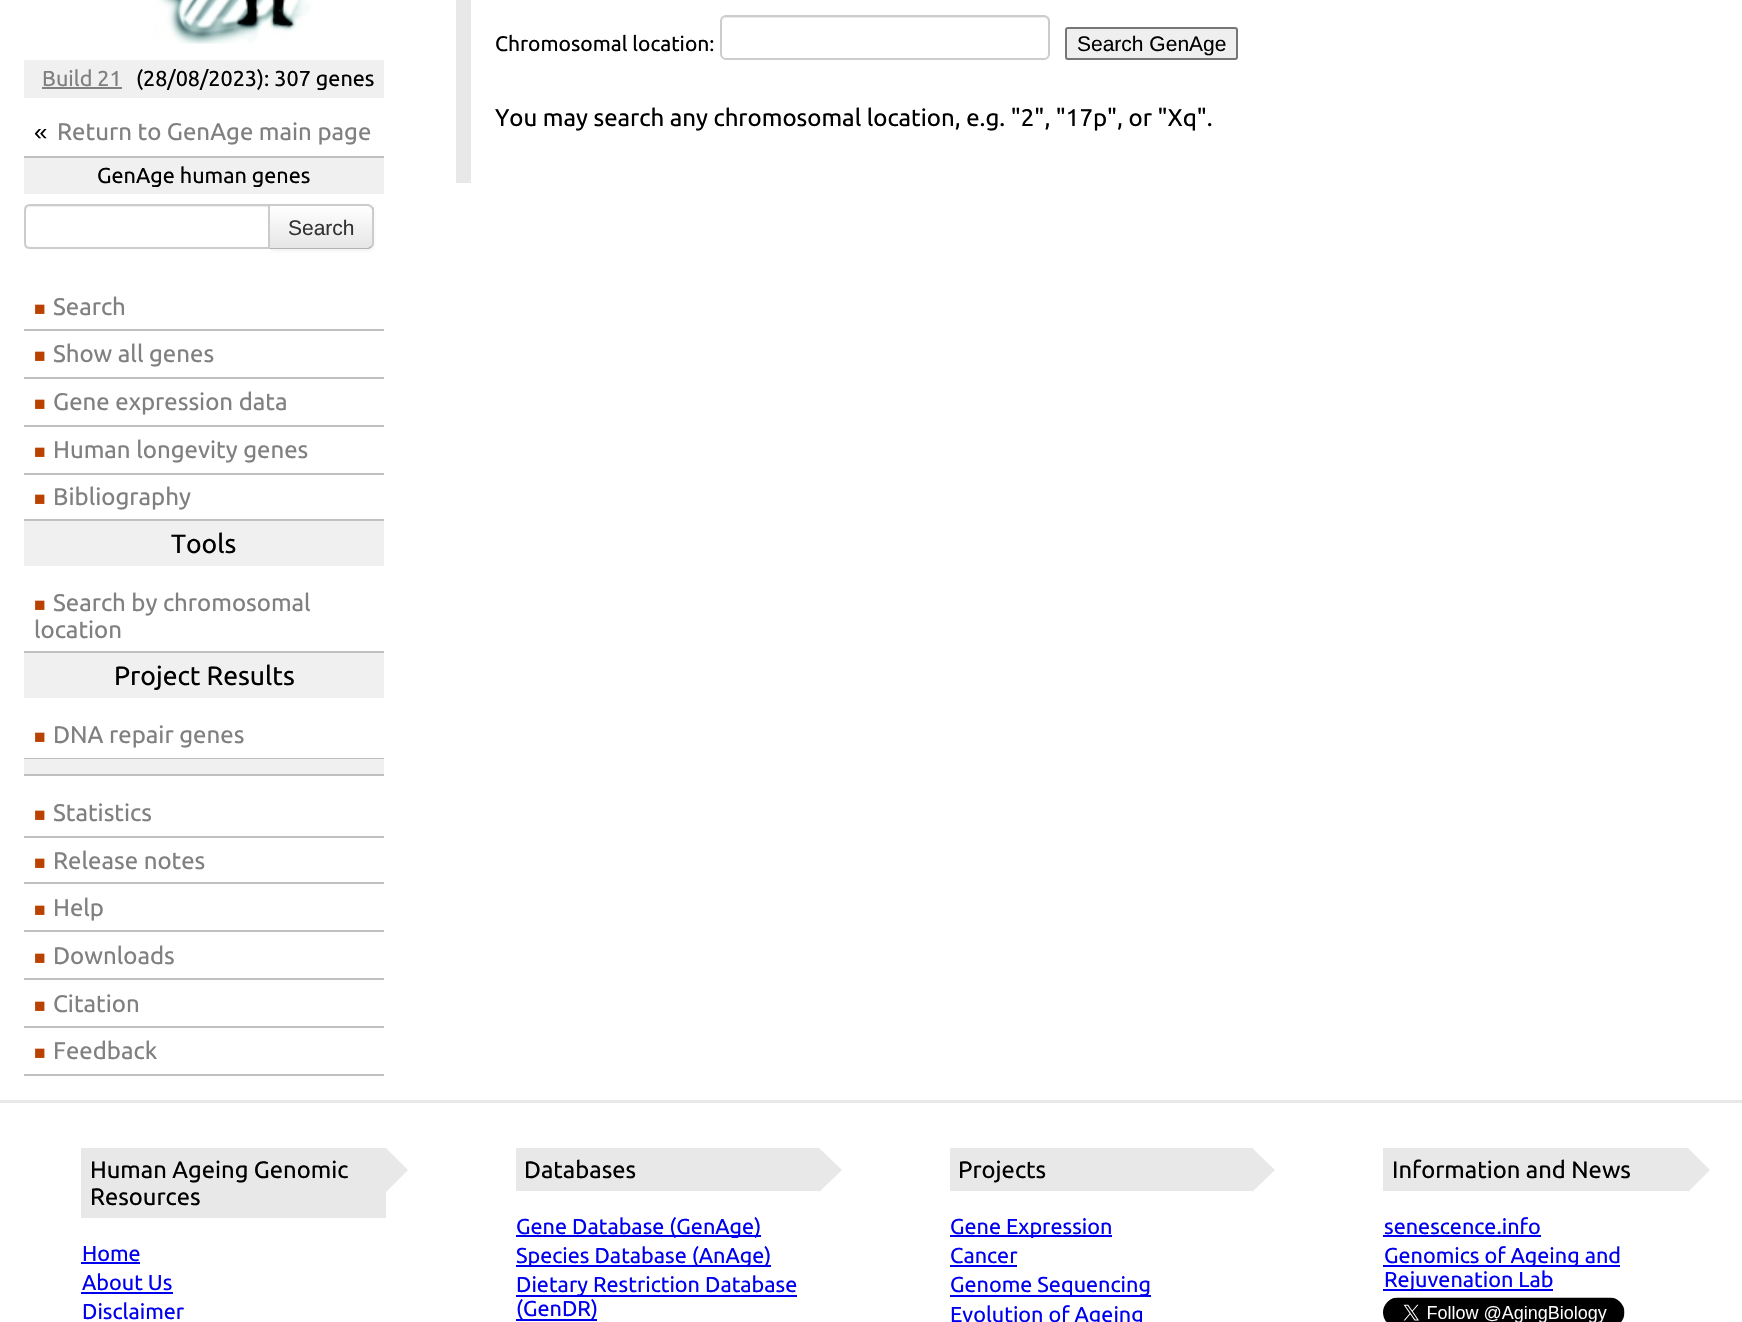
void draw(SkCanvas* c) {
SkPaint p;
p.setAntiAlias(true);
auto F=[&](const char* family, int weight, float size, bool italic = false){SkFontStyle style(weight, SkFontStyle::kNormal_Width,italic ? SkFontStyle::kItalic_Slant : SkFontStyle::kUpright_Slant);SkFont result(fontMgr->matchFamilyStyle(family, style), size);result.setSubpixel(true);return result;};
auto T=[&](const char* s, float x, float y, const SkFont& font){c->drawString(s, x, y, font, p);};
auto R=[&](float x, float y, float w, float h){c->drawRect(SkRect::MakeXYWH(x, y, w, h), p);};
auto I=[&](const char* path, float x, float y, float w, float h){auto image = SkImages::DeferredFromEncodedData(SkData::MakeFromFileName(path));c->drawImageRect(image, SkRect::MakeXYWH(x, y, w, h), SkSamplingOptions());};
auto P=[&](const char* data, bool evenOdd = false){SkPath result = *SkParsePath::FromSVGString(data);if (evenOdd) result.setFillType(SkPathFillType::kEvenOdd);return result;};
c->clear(0xffffffff);
I("1.png",153,0,159,44);
p.setColor(0xfff0f0f0);
R(24,60,360,38);
auto f1 = F("Ubuntu",400,21.6);
p.setColor(0xff808080);
T("Build 21",42,86,f1);
R(42,87,80,2);
p.setColor(0xff000000);
T("(28/08/2023): 307 genes",136,86,f1);
p.setColor(0xffc0c0c0);
R(24,156,360,2);
auto f2 = F("Liberation Sans",400,24);
p.setColor(0xff000000);
T("«",34,140,f2);
auto f3 = F("Ubuntu",400,24);
p.setColor(0xff808080);
T("Return to GenAge main page",57,140,f3);
p.setColor(0xfff0f0f0);
R(24,158,360,36);
p.setColor(0xff000000);
T("GenAge human genes",97,183,f1);
p.setColor(0x0d000000);
p.setMaskFilter(SkMaskFilter::MakeBlur(kNormal_SkBlurStyle, 1.5));
c->drawRoundRect(SkRect::MakeXYWH(269,206,105,45),6,6,p);
p.setMaskFilter(nullptr);
p.setColor(0xfff5f5f5);
c->drawPath(P("M269 204h99c3.5 0 6 2.5 6 6v33c0 3.5-2.5 6-6 6h-99z"),p);
c->save();
c->clipPath(P("M269 204h99c3.5 0 6 2.5 6 6v33c0 3.5-2.5 6-6 6h-99z"),true);
{
const SkColor colors[] = {0xffffffff,0xffe6e6e6};
const float stops[] = {0,1};
const SkPoint ends[] = {{321,206}, {321,248}};
p.setShader(SkGradientShader::MakeLinear(ends, colors, stops, 2, SkTileMode::kClamp));
p.setAlpha(255);
}
R(270,206,104,42);
c->restore();
p.setShader(nullptr);
p.setColor(0xffcccccc);
c->drawPath(P("M268 204l2 2h98l2 1l2-1c-1-1-3-2-4-2z"),p);
c->drawPath(P("M374 245l-2 2l-1-1c1-1 1-2 1-3v-33c0-1-1-2-2-3l2-1l2 2z"),p);
p.setColor(0xffb3b3b3);
c->drawPath(P("M268 249h101l3-2l-1-1l-3 2h-98z"),p);
p.setColor(0xffffffff);
c->drawPath(P("M30 204h240v45h-240c-3.5 0-6-2.5-6-6v-33c0-3.5 2.5-6 6-6z"),p);
p.setColor(0xffececec);
c->drawPath(P("M30 207h238v41h1v-42h-238c-3 0-5 2-5 5v1c0-3 2-5 4-5z"),p);
p.setStroke(true);
p.setStrokeWidth(2);
p.setColor(0xffcccccc);
c->drawPath(P("M30 205h239v43h-239c-3 0-5-2-5-5v-33c0-3 2-5 5-5z"),p);
auto f4 = F("Liberation Sans",400,21);
p.setStroke(false);
p.setColor(0xff333333);
T("Search",288,235,f4);
p.setColor(0xffc0c0c0);
R(24,329,360,2);
auto f5 = F("Liberation Sans",400,19);
p.setColor(0xffba4200);
T("■",34,315,f5);
p.setColor(0xff808080);
T("Search",53,315,f3);
p.setColor(0xffc0c0c0);
R(24,377,360,2);
p.setColor(0xffba4200);
T("■",34,362,f5);
p.setColor(0xff808080);
T("Show all genes",53,362,f3);
p.setColor(0xffc0c0c0);
R(24,425,360,2);
p.setColor(0xffba4200);
T("■",34,410,f5);
p.setColor(0xff808080);
T("Gene expression data",53,410,f3);
p.setColor(0xffc0c0c0);
R(24,473,360,2);
p.setColor(0xffba4200);
T("■",34,458,f5);
p.setColor(0xff808080);
T("Human longevity genes",53,458,f3);
p.setColor(0xffc0c0c0);
R(24,519,360,2);
p.setColor(0xffba4200);
T("■",34,505,f5);
p.setColor(0xff808080);
T("Bibliography",53,505,f3);
p.setColor(0xfff0f0f0);
R(24,521,360,45);
auto f6 = F("Ubuntu",400,26.5);
p.setColor(0xff000000);
T("Tools",171,553,f6);
p.setColor(0xffc0c0c0);
R(24,651,360,2);
p.setColor(0xffba4200);
T("■",34,611,f5);
p.setColor(0xff808080);
T("Search by chromosomal",53,611,f3);
T("location",34,638,f3);
p.setColor(0xfff0f0f0);
R(24,653,360,45);
p.setColor(0xff000000);
T("Project Results",114,685,f6);
p.setColor(0xffc0c0c0);
R(24,758,360,1);
p.setColor(0xffba4200);
T("■",34,743,f5);
p.setColor(0xff808080);
T("DNA repair genes",53,743,f3);
p.setColor(0xfff0f0f0);
R(24,759,360,15);
p.setColor(0xffc0c0c0);
R(24,774,360,2);
R(24,836,360,2);
p.setColor(0xffba4200);
T("■",34,821,f5);
p.setColor(0xff808080);
T("Statistics",53,821,f3);
p.setColor(0xffc0c0c0);
R(24,882,360,2);
p.setColor(0xffba4200);
T("■",34,869,f5);
p.setColor(0xff808080);
T("Release notes",53,869,f3);
p.setColor(0xffc0c0c0);
R(24,930,360,2);
p.setColor(0xffba4200);
T("■",34,916,f5);
p.setColor(0xff808080);
T("Help",53,916,f3);
p.setColor(0xffc0c0c0);
R(24,978,360,2);
p.setColor(0xffba4200);
T("■",34,964,f5);
p.setColor(0xff808080);
T("Downloads",53,964,f3);
p.setColor(0xffc0c0c0);
R(24,1026,360,2);
p.setColor(0xffba4200);
T("■",34,1012,f5);
p.setColor(0xff808080);
T("Citation",53,1012,f3);
p.setColor(0xffc0c0c0);
R(24,1074,360,2);
p.setColor(0xffba4200);
T("■",34,1059,f5);
p.setColor(0xff808080);
T("Feedback",53,1059,f3);
p.setColor(0xffe8e8e8);
R(456,0,15,183);
auto f7 = F("Ubuntu",400,21);
p.setColor(0xff000000);
T("Chromosomal location:",495,51,f7);
p.setColor(0xffececec);
c->drawPath(P("M726 18h318c2 0 4 2 4 4v35c1-1 1-2 1-3v-32c0-3-2-5-5-5h-317c-3 0-5 2-5 5c0-2 2-4 4-4z"),p);
p.setStroke(true);
p.setColor(0xffcccccc);
c->drawRoundRect(SkRect::MakeXYWH(721,16,328,43),5,5,p);
p.setStroke(false);
p.setColor(0xffefefef);
c->drawRoundRect(SkRect::MakeXYWH(1066,28,171,31),2,2,p);
p.setStroke(true);
p.setColor(0xff767676);
c->drawRoundRect(SkRect::MakeXYWH(1066,28,171,31),2,2,p);
p.setStroke(false);
p.setColor(0xff000000);
T("Search GenAge",1077,51,f4);
T("You may search any chromosomal location, e.g. \"2\", \"17p\", or \"Xq\".",495,126,f3);
p.setColor(0xffe8e8e8);
R(0,1100,1742,3);
R(81,1148,305,70);
auto f8 = F("Ubuntu",400,23.75);
p.setColor(0xff000000);
T("Human Ageing Genomic",90,1178,f8);
p.setColor(0xffe8e8e8);
c->drawPath(P("M386 1192v-44l22 22z"),p);
p.setColor(0xff000000);
T("Resources",90,1205,f8);
p.setColor(0xff0000ee);
T("Home",82,1261,f1);
R(81,1262,59,2);
T("About Us",82,1290,f1);
R(81,1292,92,2);
T("Disclaimer",82,1319,f1);
p.setColor(0xffe8e8e8);
R(516,1148,303,43);
p.setColor(0xff000000);
T("Databases",524,1178,f8);
p.setColor(0xffe8e8e8);
c->drawPath(P("M819 1192v-44l23 22z"),p);
p.setColor(0xff0000ee);
R(516,1235,245,2);
T("Gene Database (GenAge)",516,1234,f1);
R(516,1265,255,2);
T("Species Database (AnAge)",516,1263,f1);
R(516,1295,281,2);
T("Dietary Restriction Database",516,1292,f1);
R(516,1319,81,2);
T("(GenDR)",516,1316,f1);
p.setColor(0xffe8e8e8);
R(950,1148,303,43);
p.setColor(0xff000000);
T("Projects",958,1178,f8);
p.setColor(0xffe8e8e8);
c->drawPath(P("M1252 1192v-44l23 22z"),p);
p.setColor(0xff0000ee);
R(950,1235,162,2);
T("Gene Expression",950,1234,f1);
T("Cancer",950,1263,f1);
R(950,1265,67,2);
R(950,1295,201,2);
T("Genome Sequencing",950,1292,f1);
T("Evolution of Ageing",950,1322,f1);
p.setColor(0xffe8e8e8);
R(1383,1148,305,43);
p.setColor(0xff000000);
T("Information and News",1392,1178,f8);
p.setColor(0xffe8e8e8);
c->drawPath(P("M1688 1192v-44l22 22z"),p);
p.setColor(0xff0000ee);
T("senescence.info",1384,1234,f1);
R(1383,1235,158,2);
R(1383,1265,237,2);
T("Genomics of Ageing and",1384,1263,f1);
R(1383,1289,170,2);
T("Rejuvenation Lab",1384,1287,f1);
I("2.png",1383,1297,242,25);
}
